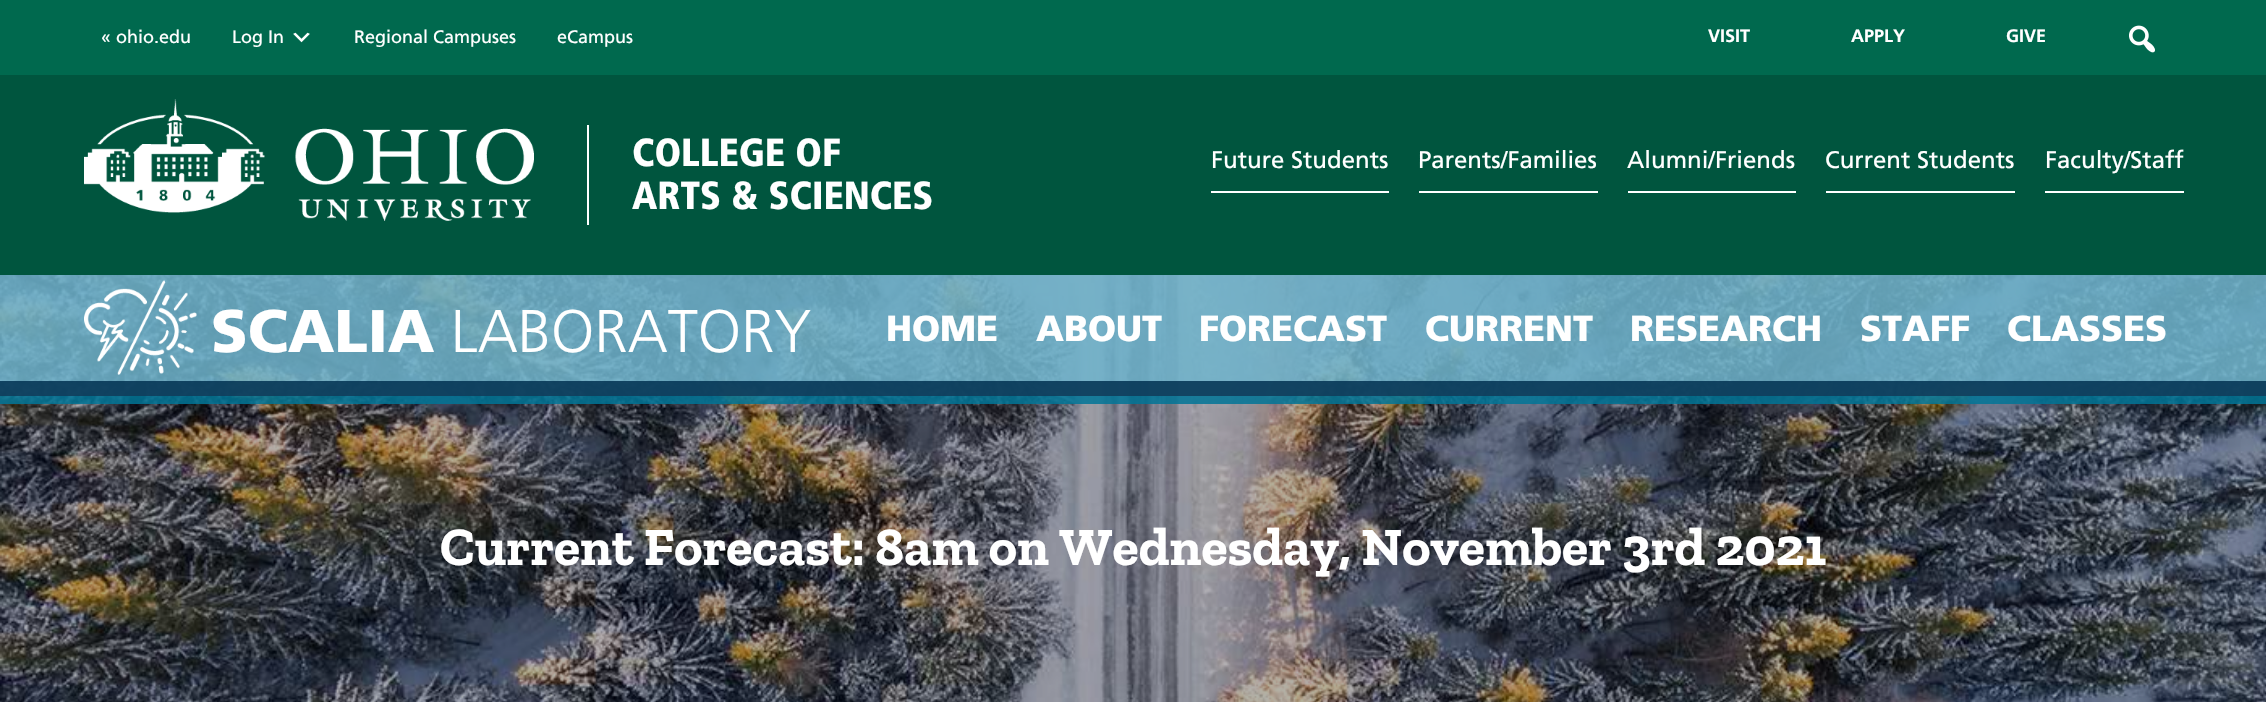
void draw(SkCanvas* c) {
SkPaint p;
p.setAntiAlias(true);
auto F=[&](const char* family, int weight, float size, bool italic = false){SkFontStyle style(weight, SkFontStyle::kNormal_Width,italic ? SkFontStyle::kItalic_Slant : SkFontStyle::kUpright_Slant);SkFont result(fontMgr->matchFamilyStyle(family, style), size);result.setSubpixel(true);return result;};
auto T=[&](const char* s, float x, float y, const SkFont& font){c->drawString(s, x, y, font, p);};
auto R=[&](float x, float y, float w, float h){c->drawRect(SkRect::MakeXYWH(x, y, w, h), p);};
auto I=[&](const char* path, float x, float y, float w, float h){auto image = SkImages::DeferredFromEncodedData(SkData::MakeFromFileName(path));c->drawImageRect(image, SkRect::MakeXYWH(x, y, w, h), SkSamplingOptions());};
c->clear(0xffffffff);
p.setColor(0xff00694e);
R(0,0,2266,75);
auto f1 = F("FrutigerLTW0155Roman",400,18);
p.setColor(0xffffffff);
T("« ohio.edu",101,43,f1);
T("Log In",232,43,f1);
I("1.png",293,32,17,11);
T("Regional Campuses",354,43,f1);
T("eCampus",557,43,f1);
auto f2 = F("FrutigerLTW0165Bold",700,18);
T("VISIT",1708,42,f2);
T("APPLY",1851,42,f2);
T("GIVE",2006,42,f2);
I("2.png",2129,25,26,28);
p.setColor(0xff00553e);
R(0,75,2266,200);
I("3.png",84,99,450,122);
p.setColor(0xffffffff);
R(587,125,2,100);
auto f3 = F("Frutiger",900,39);
T("COLLEGE OF",632,166,f3);
T("ARTS & SCIENCES",632,209,f3);
R(1211,191,178,2);
auto f4 = F("FrutigerLTW0155Roman",400,24);
T("Future Students",1211,168,f4);
R(1419,191,179,2);
T("Parents/Families",1418,168,f4);
R(1628,191,168,2);
T("Alumni/Friends",1627,168,f4);
R(1826,191,189,2);
T("Current Students",1825,168,f4);
R(2045,191,139,2);
T("Faculty/Staff",2045,168,f4);
I("5.png",0,275,2266,427);
p.setColor(0xd96eb4cd);
R(0,275,2266,121);
p.setColor(0xd9003050);
R(0,381,2266,15);
I("4.png",84,280,113,95);
auto f5 = F("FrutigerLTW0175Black",900,60);
p.setColor(0xffffffff);
T("SCALIA",211,352,f5);
auto f6 = F("Frutiger",300,60);
T("LABORATORY",451,352,f6);
auto f7 = F("FrutigerLTW0175Black",900,36);
T("HOME",886,341,f7);
T("ABOUT",1036,341,f7);
T("FORECAST",1199,341,f7);
T("CURRENT",1425,341,f7);
T("RESEARCH",1630,341,f7);
T("STAFF",1860,341,f7);
T("CLASSES",2007,341,f7);
p.setColor(0xd9007496);
R(0,396,2266,8);
auto f8 = F("Zilla Slab",700,54);
p.setColor(0xffffffff);
T("Current Forecast: 8am on Wednesday, November 3rd 2021",440,565,f8);
}
